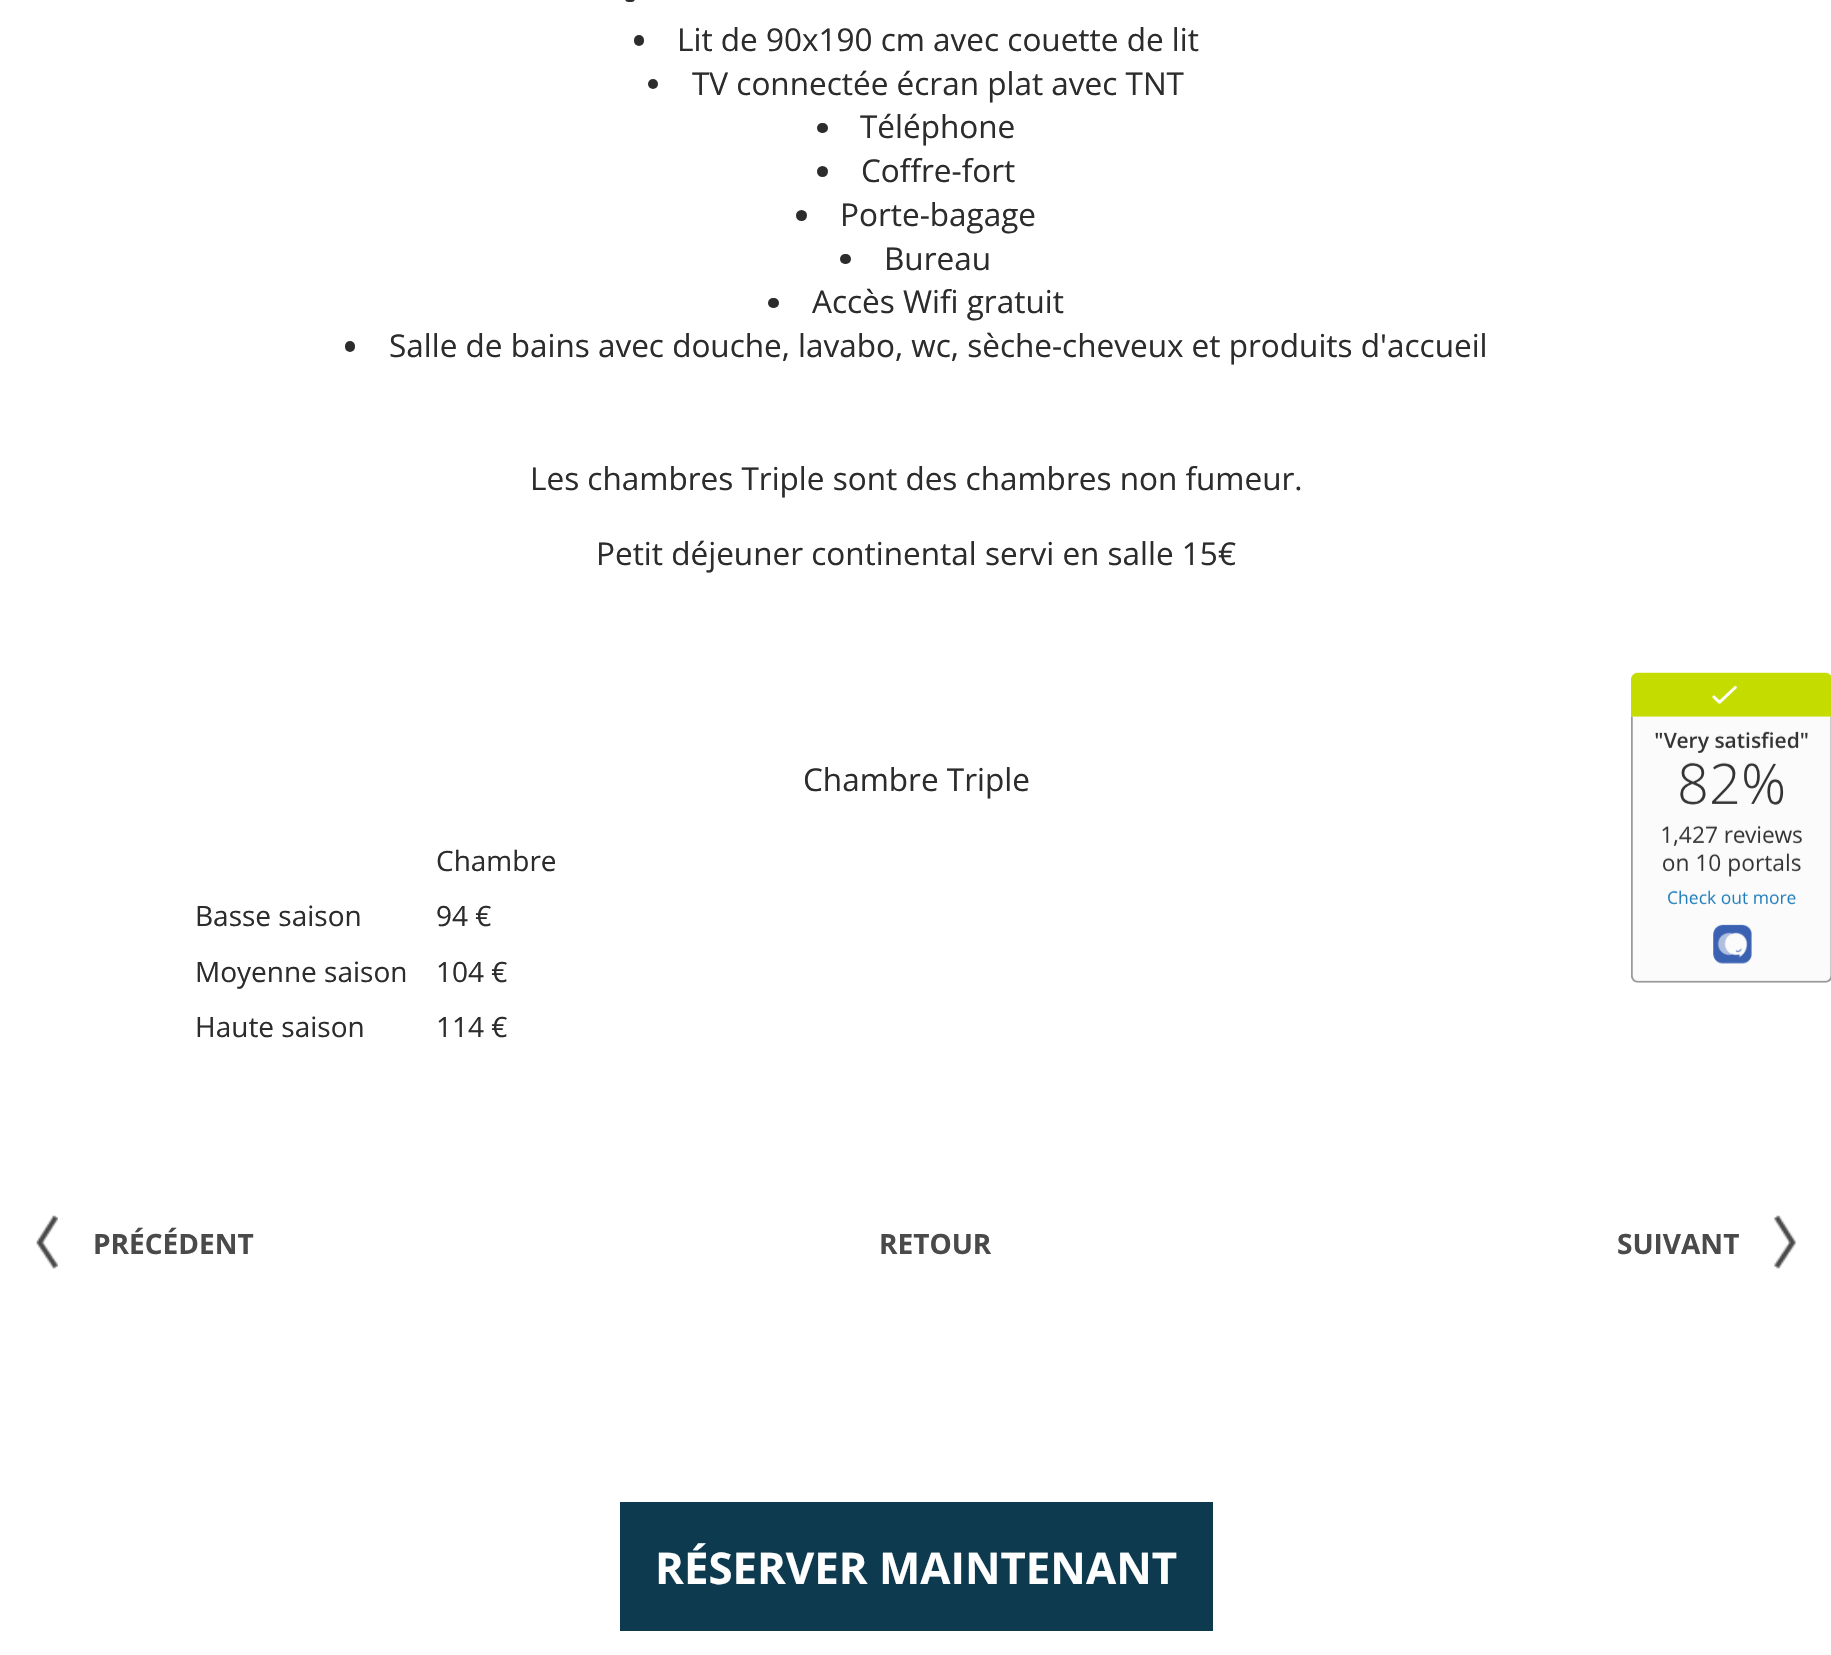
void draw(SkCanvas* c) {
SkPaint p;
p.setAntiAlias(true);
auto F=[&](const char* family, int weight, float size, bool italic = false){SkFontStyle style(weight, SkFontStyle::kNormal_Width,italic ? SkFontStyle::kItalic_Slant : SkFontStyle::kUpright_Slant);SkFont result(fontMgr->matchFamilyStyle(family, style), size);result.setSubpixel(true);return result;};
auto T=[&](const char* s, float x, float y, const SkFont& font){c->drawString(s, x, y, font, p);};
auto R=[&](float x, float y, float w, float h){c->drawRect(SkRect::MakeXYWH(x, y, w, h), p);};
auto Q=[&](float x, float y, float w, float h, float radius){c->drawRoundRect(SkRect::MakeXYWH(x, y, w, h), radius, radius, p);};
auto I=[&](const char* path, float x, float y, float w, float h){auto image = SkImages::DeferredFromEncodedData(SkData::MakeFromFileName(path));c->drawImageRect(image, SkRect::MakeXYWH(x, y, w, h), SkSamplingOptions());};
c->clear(0xffffffff);
p.setColor(0xff2c2c2c);
Q(625,-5,10,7,5);
Q(634,35,10,11,5);
auto f1 = F("Open Sans",400,31.5);
T("Lit de 90x190 cm avec couette de lit",677,51,f1);
c->drawCircle(653,84,5,p);
T("TV connectée écran plat avec TNT",692,95,f1);
Q(817,123,11,10,5);
T("Téléphone",860,138,f1);
c->drawCircle(822.5,171.5,5.5,p);
T("Coffre-fort",861,182,f1);
c->drawCircle(801.5,215.5,5.5,p);
T("Porte-bagage",840,226,f1);
Q(840,254,11,10,5);
T("Bureau",884,270,f1);
Q(768,298,11,10,5);
T("Accès Wifi gratuit",812,313,f1);
Q(345,341,10,11,5);
T("Salle de bains avec douche, lavabo, wc, sèche-cheveux et produits d'accueil",389,357,f1);
T("Les chambres Triple sont des chambres non fumeur.",530,490,f1);
T("Petit déjeuner continental servi en salle 15€",596,565,f1);
T("Chambre Triple",803,791,f1);
auto f2 = F("Open Sans",400,28);
T("Chambre",436,871,f2);
T("Basse saison",195,926,f2);
T("94 €",436,926,f2);
T("Moyenne saison",195,982,f2);
T("104 €",436,982,f2);
T("Haute saison",195,1037,f2);
T("114 €",436,1037,f2);
I("1.png",36,1215,22,54);
auto f3 = F("Open Sans",700,28);
p.setColor(0xff4a4a4a);
T("PRÉCÉDENT",93,1254,f3);
T("RETOUR",879,1254,f3);
I("2.png",1774,1215,22,54);
T("SUIVANT",1617,1254,f3);
p.setColor(0xff0d3a4f);
R(620,1502,593,129);
auto f4 = F("Open Sans",700,43.75);
p.setColor(0xffffffff);
T("RÉSERVER MAINTENANT",655,1584,f4);
I("3.png",1631,672,200,311);
I("4.png",1631,672,200,311);
}
